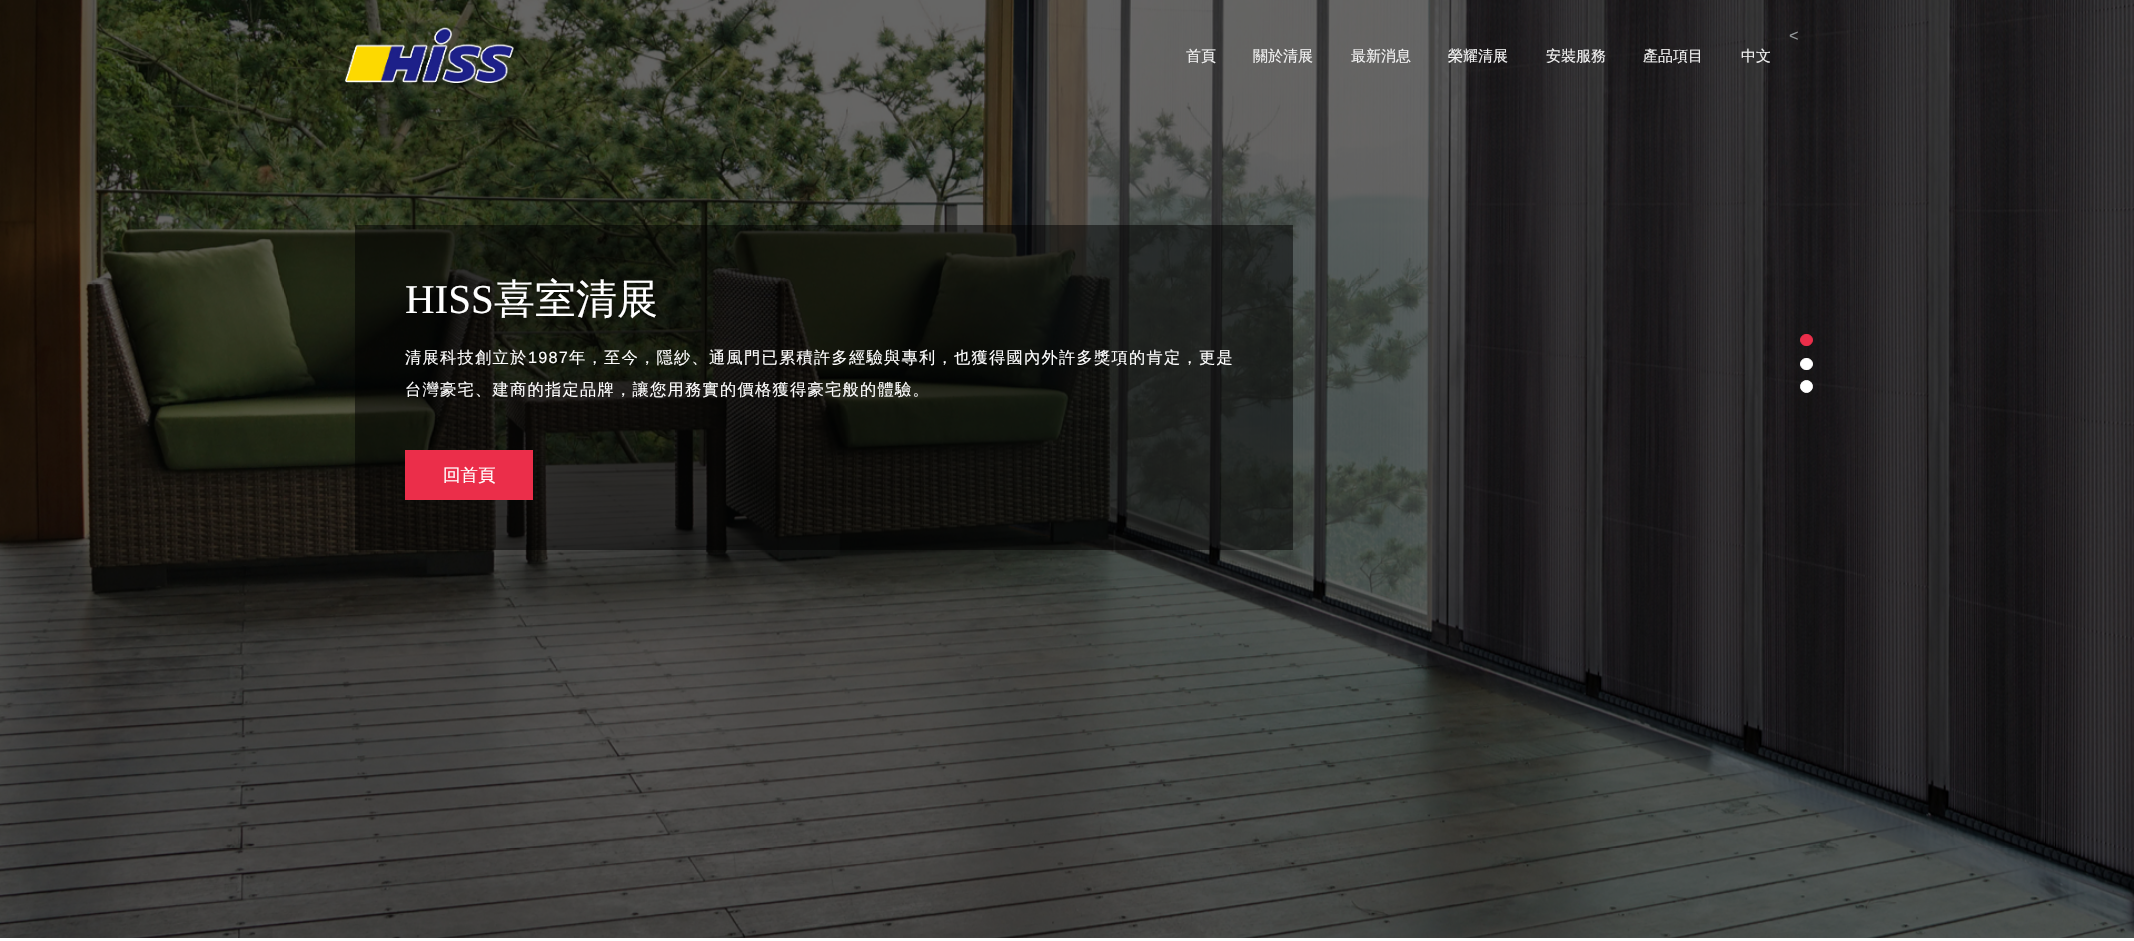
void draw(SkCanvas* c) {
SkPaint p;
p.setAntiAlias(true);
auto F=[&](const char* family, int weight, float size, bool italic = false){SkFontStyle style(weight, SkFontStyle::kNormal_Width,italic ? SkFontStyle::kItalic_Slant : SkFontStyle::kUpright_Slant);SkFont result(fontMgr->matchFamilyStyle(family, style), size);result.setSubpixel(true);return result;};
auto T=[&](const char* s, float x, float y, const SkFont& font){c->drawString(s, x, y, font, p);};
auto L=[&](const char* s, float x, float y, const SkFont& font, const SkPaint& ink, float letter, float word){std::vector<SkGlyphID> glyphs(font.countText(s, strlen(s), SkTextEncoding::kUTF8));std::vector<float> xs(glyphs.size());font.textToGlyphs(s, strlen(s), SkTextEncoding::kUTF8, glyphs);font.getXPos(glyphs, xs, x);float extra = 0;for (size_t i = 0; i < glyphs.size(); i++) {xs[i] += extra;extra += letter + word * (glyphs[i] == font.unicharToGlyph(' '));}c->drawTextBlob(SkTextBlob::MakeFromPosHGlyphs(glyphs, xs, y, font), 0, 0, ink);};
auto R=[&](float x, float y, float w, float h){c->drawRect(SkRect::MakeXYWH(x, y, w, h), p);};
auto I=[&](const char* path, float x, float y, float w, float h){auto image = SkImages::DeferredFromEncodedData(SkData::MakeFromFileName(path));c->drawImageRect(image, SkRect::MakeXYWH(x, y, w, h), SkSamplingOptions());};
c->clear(0xffffffff);
I("2.png",0,0,2134,938);
I("1.png",345,27,169,56);
auto f1 = F("Liberation Sans",400,16.25);
p.setColor(0xff93989b);
T("<",1789,41,f1);
auto f2 = F("WenQuanYi Zen Hei",500,15);
p.setColor(0xfff3f3f3);
T("首頁",1186,61,f2);
T("關於清展",1253,61,f2);
T("最新消息",1351,61,f2);
T("榮耀清展",1448,61,f2);
T("安裝服務",1546,61,f2);
T("產品項目",1643,61,f2);
T("中文",1741,61,f2);
p.setColor(0x80000000);
R(355,225,938,325);
auto f3 = F("Liberation Serif",400,41);
p.setColor(0xffffffff);
T("HISS",405,313,f3);
auto f4 = F("WenQuanYi Zen Hei",500,41);
T("喜室清展",494,313,f4);
auto f5 = F("WenQuanYi Zen Hei",500,16.25);
L("清展科技創立於",405,363,f5,p,1.25,0);
L("1987",528,363,f1,p,1.25,0);
L("年，至今，隱紗、通風門已累積許多經驗與專利，也獲得國內外許多獎項的肯定，更是",569,363,f5,p,1.25,0);
L("台灣豪宅、建商的指定品牌，讓您用務實的價格獲得豪宅般的體驗。",405,395,f5,p,1.25,0);
p.setColor(0xffeb2e4a);
R(405,450,128,50);
auto f6 = F("WenQuanYi Zen Hei",500,17.5);
p.setColor(0xffffffff);
T("回首頁",443,481,f6);
p.setColor(0xffeb2e4a);
c->drawRoundRect(SkRect::MakeXYWH(1800.5,334.5,12,11),5.5,5.5,p);
p.setStroke(true);
p.setStrokeWidth(1);
c->drawRoundRect(SkRect::MakeXYWH(1800.5,334.5,12,11),5.5,5.5,p);
p.setStroke(false);
p.setColor(0xffffffff);
c->drawRoundRect(SkRect::MakeXYWH(1800.5,358.5,12,11),5.5,5.5,p);
p.setStroke(true);
c->drawRoundRect(SkRect::MakeXYWH(1800.5,358.5,12,11),5.5,5.5,p);
p.setStroke(false);
c->drawCircle(1806.5,386.5,6,p);
p.setStroke(true);
c->drawCircle(1806.5,386.5,6,p);
}
